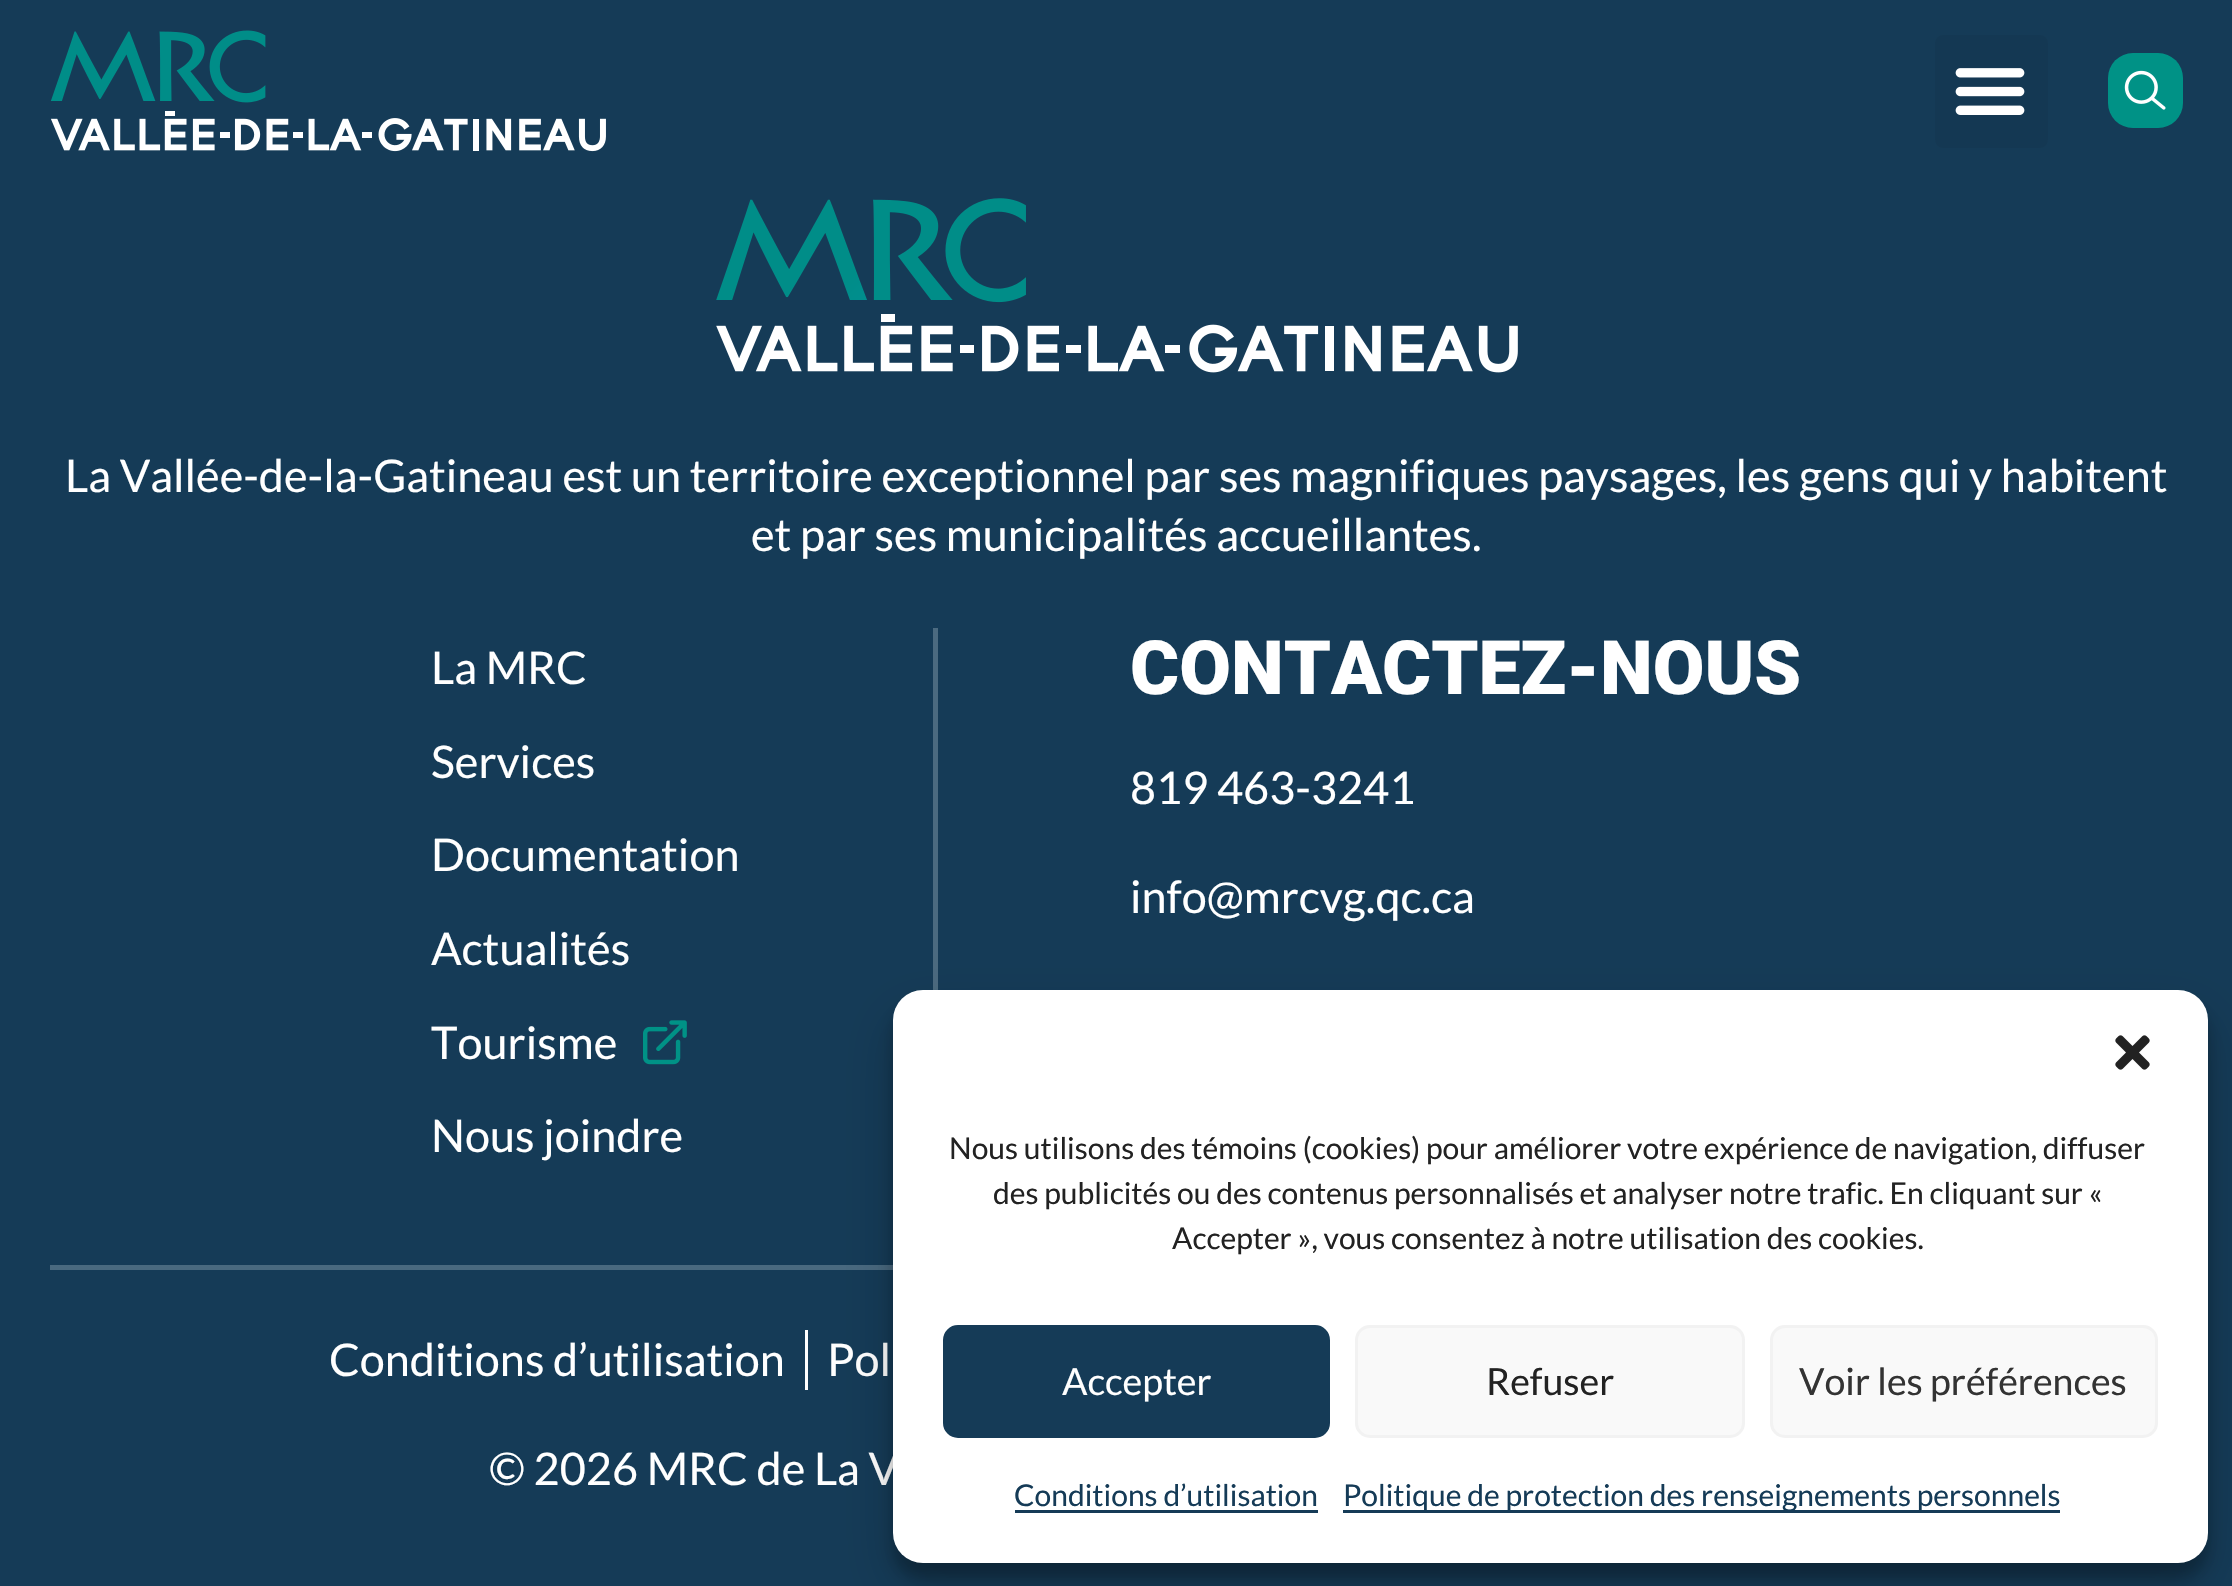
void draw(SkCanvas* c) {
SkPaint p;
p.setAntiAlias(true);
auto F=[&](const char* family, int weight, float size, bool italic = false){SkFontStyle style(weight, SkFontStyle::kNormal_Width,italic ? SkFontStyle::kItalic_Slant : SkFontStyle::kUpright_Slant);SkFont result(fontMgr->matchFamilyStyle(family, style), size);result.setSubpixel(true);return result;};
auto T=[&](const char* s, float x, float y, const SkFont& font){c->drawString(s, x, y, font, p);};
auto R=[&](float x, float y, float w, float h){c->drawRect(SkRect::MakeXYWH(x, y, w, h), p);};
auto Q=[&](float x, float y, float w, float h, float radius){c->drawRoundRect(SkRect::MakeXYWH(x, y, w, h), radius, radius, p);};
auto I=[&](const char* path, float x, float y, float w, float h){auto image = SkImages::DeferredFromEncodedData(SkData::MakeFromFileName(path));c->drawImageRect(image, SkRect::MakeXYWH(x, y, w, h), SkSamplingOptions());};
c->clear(0xff153b57);
I("1.png",50,30,556,122);
p.setColor(0xff143853);
Q(1935,35,113,113,8);
I("2.png",1955,68,70,47);
p.setColor(0xff009286);
Q(2108,53,75,75,25);
I("3.png",2124,70,42,40);
I("4.png",716,198,802,175);
auto f1 = F("Lato",400,45);
p.setColor(0xffffffff);
T("La Vallée-de-la-Gatineau est un territoire exceptionnel par ses magnifiques paysages, les gens qui y habitent",65,492,f1);
T("et par ses municipalités accueillantes.",751,551,f1);
T("La MRC",431,684,f1);
T("Services",431,778,f1);
T("Documentation",431,871,f1);
T("Actualités",431,965,f1);
I("5.png",643,1020,44,45);
T("Tourisme",431,1059,f1);
T("Nous joindre",431,1152,f1);
p.setColor(0xff4b6a80);
R(933,628,5,362);
auto f2 = F("Roboto",900,75);
p.setColor(0xffffffff);
T("CONTACTEZ-NOUS",1130,694,f2);
T("819 463-3241",1130,804,f1);
T("info@mrcvg.qc.ca",1130,913,f1);
p.setColor(0xff49697f);
R(50,1265,843,5);
p.setColor(0xffffffff);
T("Conditions d’utilisation",329,1376,f1);
R(805,1330,3,60);
T("Pol",827,1376,f1);
T("© 2026 MRC de La V",489,1485,f1);
p.setColor(0x3b000000);
p.setMaskFilter(SkMaskFilter::MakeBlur(kNormal_SkBlurStyle, 7.5));
c->drawRoundRect(SkRect::MakeXYWH(893,1005,1315,573),30,30,p);
p.setMaskFilter(nullptr);
p.setColor(0x30000000);
p.setMaskFilter(SkMaskFilter::MakeBlur(kNormal_SkBlurStyle, 25));
c->drawRoundRect(SkRect::MakeXYWH(893,1015,1315,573),30,30,p);
p.setMaskFilter(nullptr);
p.setColor(0xffffffff);
Q(893,990,1315,573,30);
I("6.png",2115,1035,35,35);
auto f3 = F("Lato",400,30);
p.setColor(0xff222222);
T("Nous utilisons des témoins (cookies) pour améliorer votre expérience de navigation, diffuser",949,1159,f3);
T("des publicités ou des contenus personnalisés et analyser notre trafic. En cliquant sur «",993,1204,f3);
T("Accepter », vous consentez à notre utilisation des cookies.",1172,1249,f3);
p.setColor(0xff153b57);
c->drawRoundRect(SkRect::MakeXYWH(944.5,1326.5,384,110),13.5,13.5,p);
p.setStroke(true);
p.setStrokeWidth(3);
c->drawRoundRect(SkRect::MakeXYWH(944.5,1326.5,384,110),13.5,13.5,p);
auto f4 = F("Lato",400,37.5);
p.setStroke(false);
p.setColor(0xffffffff);
T("Accepter",1062,1395,f4);
p.setColor(0xfff9f9f9);
c->drawRoundRect(SkRect::MakeXYWH(1356.5,1326.5,387,110),13.5,13.5,p);
p.setStroke(true);
p.setColor(0xfff2f2f2);
c->drawRoundRect(SkRect::MakeXYWH(1356.5,1326.5,387,110),13.5,13.5,p);
p.setStroke(false);
p.setColor(0xff222222);
T("Refuser",1486,1395,f4);
p.setColor(0xfff9f9f9);
c->drawRoundRect(SkRect::MakeXYWH(1771.5,1326.5,385,110),13.5,13.5,p);
p.setStroke(true);
p.setColor(0xfff2f2f2);
c->drawRoundRect(SkRect::MakeXYWH(1771.5,1326.5,385,110),13.5,13.5,p);
p.setStroke(false);
p.setColor(0xff333333);
T("Voir les préférences",1799,1395,f4);
p.setColor(0xff153b57);
T("Conditions d’utilisation",1014,1506,f3);
R(1015,1510,303,3);
R(1343,1510,717,3);
T("Politique de protection des renseignements personnels",1343,1506,f3);
}
